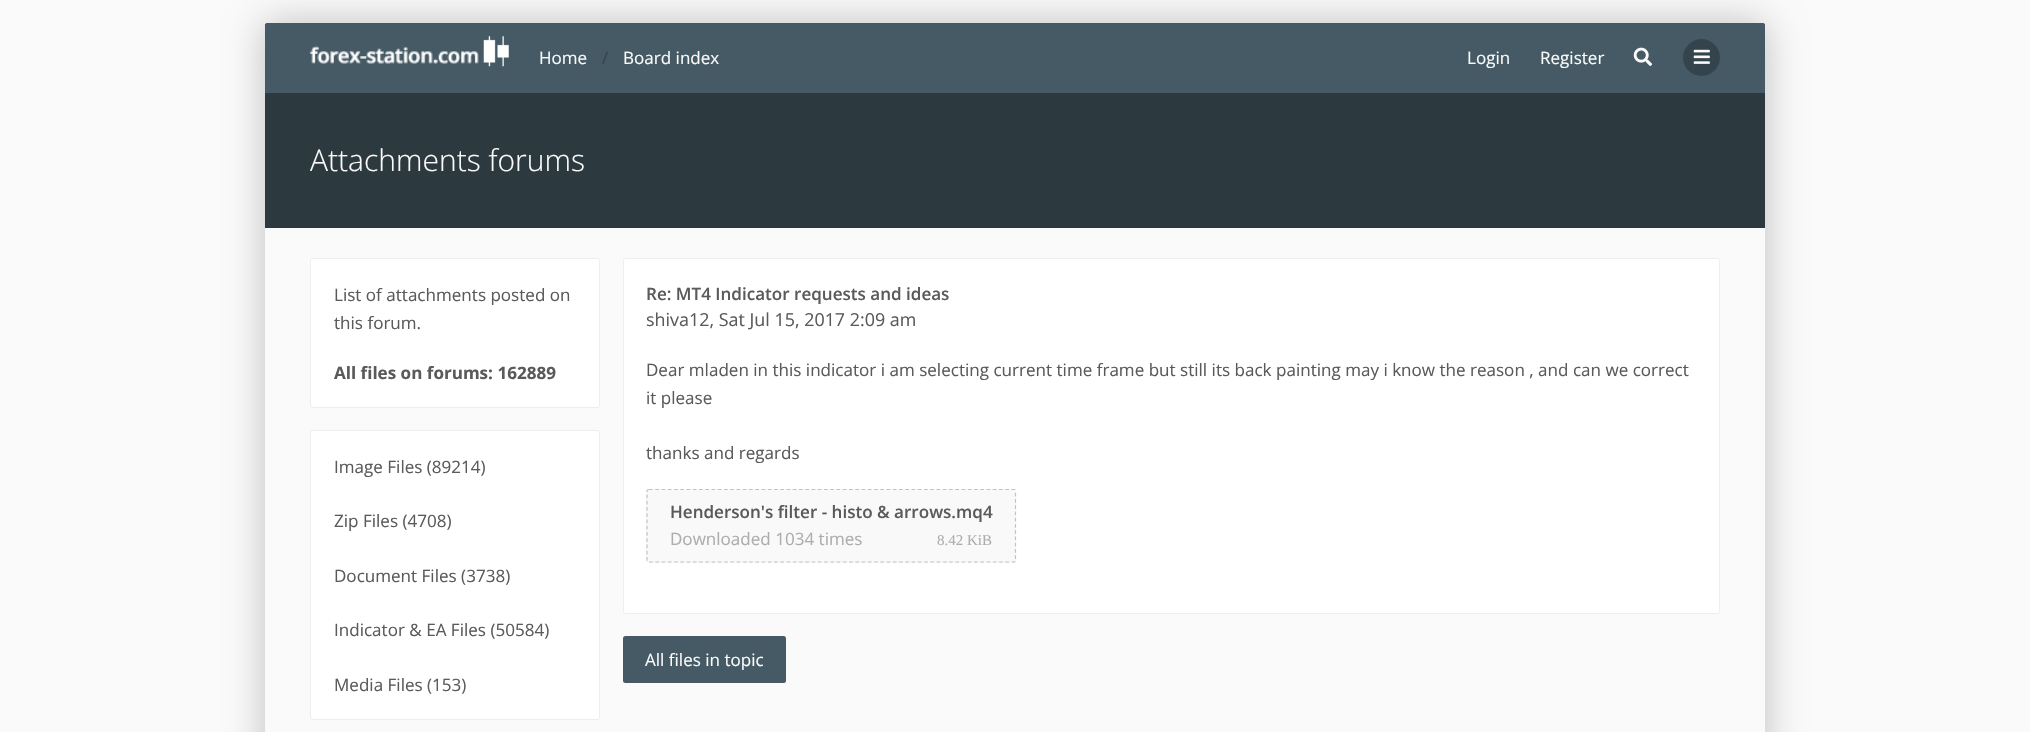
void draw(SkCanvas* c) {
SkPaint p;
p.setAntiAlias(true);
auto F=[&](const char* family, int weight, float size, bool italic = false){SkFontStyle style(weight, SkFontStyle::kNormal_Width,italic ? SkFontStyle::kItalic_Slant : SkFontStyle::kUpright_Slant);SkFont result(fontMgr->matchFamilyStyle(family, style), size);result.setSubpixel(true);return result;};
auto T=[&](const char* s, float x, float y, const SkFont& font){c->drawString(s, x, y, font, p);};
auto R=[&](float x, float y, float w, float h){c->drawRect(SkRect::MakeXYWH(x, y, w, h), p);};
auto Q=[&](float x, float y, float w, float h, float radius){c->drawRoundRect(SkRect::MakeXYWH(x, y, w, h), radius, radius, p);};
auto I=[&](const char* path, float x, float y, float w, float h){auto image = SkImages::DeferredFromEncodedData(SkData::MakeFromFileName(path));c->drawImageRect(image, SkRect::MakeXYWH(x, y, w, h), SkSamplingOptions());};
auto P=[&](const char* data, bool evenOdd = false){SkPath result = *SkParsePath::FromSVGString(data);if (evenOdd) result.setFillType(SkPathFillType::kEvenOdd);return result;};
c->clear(0xfffafafa);
p.setColor(0x3d000000);
p.setMaskFilter(SkMaskFilter::MakeBlur(kNormal_SkBlurStyle, 19));
c->drawRoundRect(SkRect::MakeXYWH(265,23,1500,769),2.5,2.5,p);
p.setMaskFilter(nullptr);
p.setColor(0xff2c393f);
c->drawPath(P("M267.5 23h1495c1.5 0 2.5 1 2.5 2.5v202.5h-1500v-202.5c0-1.5 1-2.5 2.5-2.5z"),p);
p.setColor(0xff455a64);
c->drawPath(P("M267.5 23h1495c1.5 0 2.5 1 2.5 2.5v67.5h-1500v-67.5c0-1.5 1-2.5 2.5-2.5z"),p);
I("1.png",310,36,199,31);
auto f1 = F("Open Sans",400,17.05);
p.setColor(0xfffafafa);
T("Home",539,64,f1);
p.setColor(0xff34444c);
T("/",602,64,f1);
p.setColor(0xfffafafa);
T("Board index",623,64,f1);
T("Login",1467,64,f1);
T("Register",1540,64,f1);
I("2.png",1633,47,20,19);
p.setColor(0xff34444c);
c->drawCircle(1701.5,57.5,18.5,p);
I("3.png",1693,49,17,15);
auto f2 = F("Open Sans",300,30);
p.setColor(0xfffafafa);
T("Attachments forums",310,171,f2);
R(265,228,1500,504);
p.setColor(0xffffffff);
c->drawRoundRect(SkRect::MakeXYWH(310.5,258.5,289,149),2,2,p);
p.setStroke(true);
p.setStrokeWidth(1);
p.setColor(0xffeeeeee);
c->drawRoundRect(SkRect::MakeXYWH(310.5,258.5,289,149),2,2,p);
p.setStroke(false);
p.setColor(0xff5a5a5a);
T("List of attachments posted on",334,301,f1);
T("this forum.",334,329,f1);
auto f3 = F("Open Sans",700,17.05);
T("All files on forums: 162889",334,379,f3);
p.setColor(0xffffffff);
c->drawRoundRect(SkRect::MakeXYWH(310.5,430.5,289,289),2,2,p);
p.setStroke(true);
p.setColor(0xffeeeeee);
c->drawRoundRect(SkRect::MakeXYWH(310.5,430.5,289,289),2,2,p);
p.setStroke(false);
p.setColor(0xff5a5a5a);
T("Image Files (89214)",334,473,f1);
T("Zip Files (4708)",334,527,f1);
T("Document Files (3738)",334,582,f1);
T("Indicator & EA Files (50584)",334,636,f1);
T("Media Files (153)",334,691,f1);
p.setColor(0xffffffff);
c->drawRoundRect(SkRect::MakeXYWH(623.5,258.5,1096,355),2,2,p);
p.setStroke(true);
p.setColor(0xffeeeeee);
c->drawRoundRect(SkRect::MakeXYWH(623.5,258.5,1096,355),2,2,p);
auto f4 = F("Open Sans",600,17.05);
p.setStroke(false);
p.setColor(0xff5a5a5a);
T("Re: MT4 Indicator requests and ideas",646,300,f4);
auto f5 = F("Open Sans",400,17.9);
T("shiva12, Sat Jul 15, 2017 2:09 am",646,326,f5);
T("Dear mladen in this indicator i am selecting current time frame but still its back painting may i know the reason , and can we correct",646,376,f1);
T("it please",646,404,f1);
T("thanks and regards",646,459,f1);
p.setColor(0xfff9f9f9);
Q(646,489,370,74,2.5);
p.setStroke(true);
p.setStrokeWidth(1.2);
p.setColor(0xffc2c2c2);
p.setPathEffect(SkDashPathEffect::Make({{3.75f,2.5f}}, 0));
c->drawPath(P("M649 489.5h365c1 0 1.5 .5 1.5 1.5v69c0 1-.5 2-1.5 2h-365c-1.5 0-2-1-2-2v-69c0-1 .5-1.5 2-1.5z"),p);
p.setPathEffect(nullptr);
p.setStroke(false);
p.setColor(0xff5a5a5a);
T("Henderson's filter - histo & arrows.mq4",670,518,f4);
p.setColor(0xffadadad);
T("Downloaded 1034 times",670,545,f1);
auto f6 = F("Liberation Serif",400,15);
T("8.42 KiB",937,545,f6);
p.setColor(0xff455a64);
Q(623,636,163,47,2.5);
p.setColor(0xfffafafa);
T("All files in topic",645,666,f1);
}
